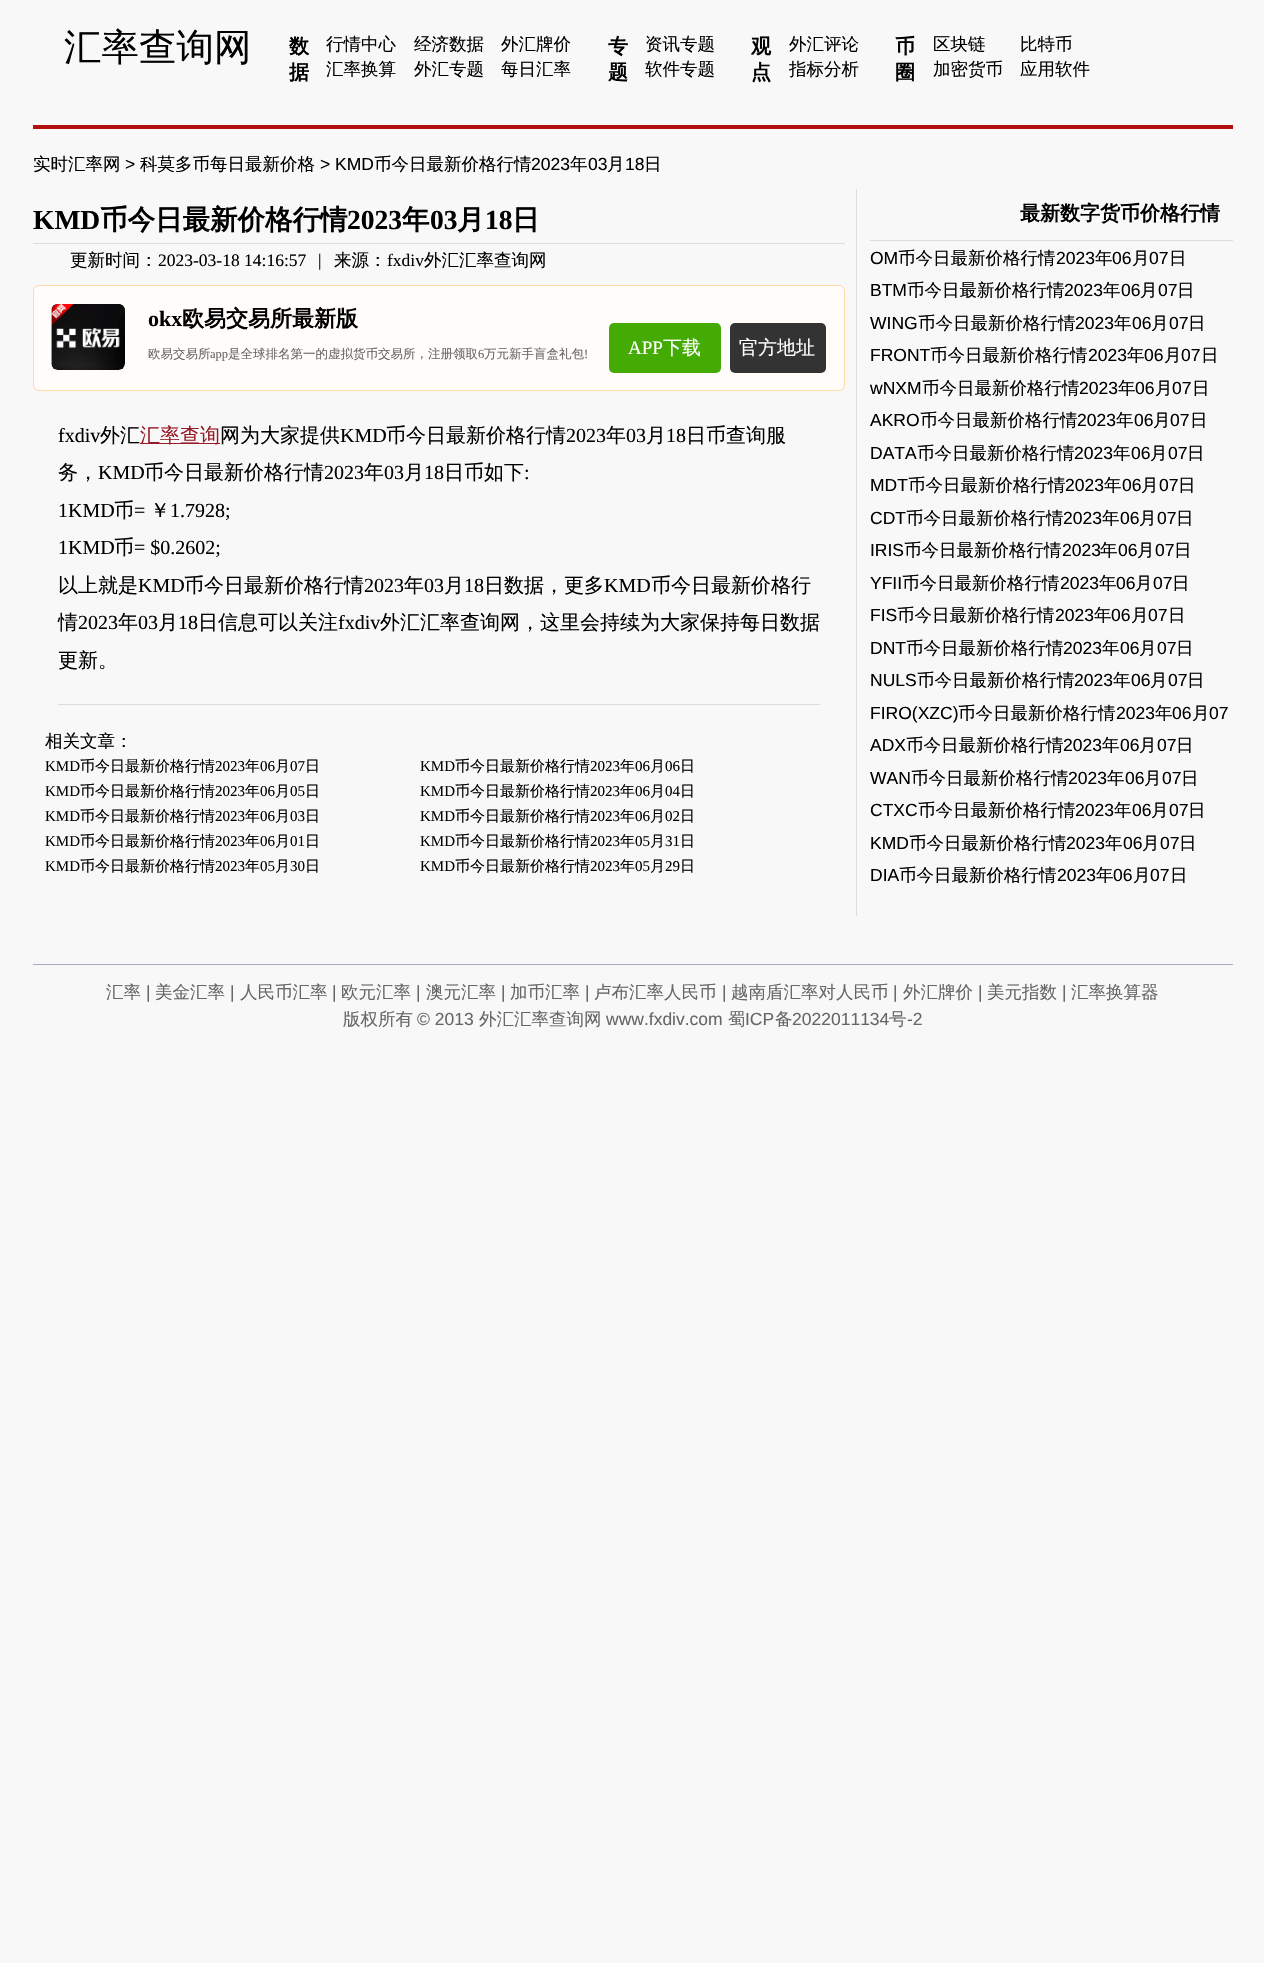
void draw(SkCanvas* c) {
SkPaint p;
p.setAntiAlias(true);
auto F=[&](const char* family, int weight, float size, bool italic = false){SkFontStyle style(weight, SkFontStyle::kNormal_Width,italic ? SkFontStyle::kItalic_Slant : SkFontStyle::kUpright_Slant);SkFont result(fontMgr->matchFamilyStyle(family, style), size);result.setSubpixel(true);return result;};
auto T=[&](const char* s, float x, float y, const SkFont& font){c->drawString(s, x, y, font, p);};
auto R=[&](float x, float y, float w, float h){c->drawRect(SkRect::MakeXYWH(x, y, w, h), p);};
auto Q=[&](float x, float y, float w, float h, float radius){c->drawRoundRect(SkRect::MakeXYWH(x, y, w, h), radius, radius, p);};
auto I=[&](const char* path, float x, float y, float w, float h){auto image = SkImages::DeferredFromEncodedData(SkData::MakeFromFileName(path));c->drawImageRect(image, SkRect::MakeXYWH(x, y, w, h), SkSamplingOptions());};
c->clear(0xfff8f8f8);
p.setColor(0xffb2110e);
R(33,125,1200,4);
auto f1 = F("WenQuanYi Zen Hei",500,37.5);
p.setColor(0xff000000);
T("汇率查询网",64,60,f1);
auto f2 = F("WenQuanYi Zen Hei",700,20);
T("数",289,53,f2);
T("据",289,79,f2);
auto f3 = F("WenQuanYi Zen Hei",500,17.5);
T("行情中心",326,50,f3);
T("经济数据",414,50,f3);
T("外汇牌价",501,50,f3);
T("汇率换算",326,75,f3);
T("外汇专题",414,75,f3);
T("每日汇率",501,75,f3);
T("专",608,53,f2);
T("题",608,79,f2);
T("资讯专题",645,50,f3);
T("软件专题",645,75,f3);
T("观",751,53,f2);
T("点",751,79,f2);
T("外汇评论",789,50,f3);
T("指标分析",789,75,f3);
T("币",895,53,f2);
T("圈",895,79,f2);
T("区块链",933,50,f3);
T("比特币",1020,50,f3);
T("加密货币",933,75,f3);
T("应用软件",1020,75,f3);
T("实时汇率网",33,170,f3);
auto f4 = F("Liberation Sans",400,17.5);
T(">",125,170,f4);
T("科莫多币每日最新价格",140,170,f3);
T("> KMD",320,170,f4);
T("币今日最新价格行情",374,170,f3);
T("2023",531,170,f4);
T("年",570,170,f3);
T("03",588,170,f4);
T("月",607,170,f3);
T("18",625,170,f4);
T("日",644,170,f3);
auto f5 = F("Liberation Serif",700,27.5);
T("KMD",33,229,f5);
auto f6 = F("WenQuanYi Zen Hei",700,27.5);
T("币今日最新价格行情",100,229,f6);
T("2023",347,229,f5);
T("年",402,229,f6);
T("03",430,229,f5);
T("月",457,229,f6);
T("18",485,229,f5);
T("日",512,229,f6);
p.setColor(0xffdddddd);
R(33,243,812,1);
p.setColor(0xff000000);
T("更新时间：",70,266,f3);
auto f7 = F("Liberation Serif",400,17.5);
T("2023-03-18 14:16:57",158,266,f7);
T("|",318,266,f7);
T("来源：",334,266,f3);
T("fxdiv",387,266,f7);
T("外汇汇率查询网",424,266,f3);
p.setColor(0xfffffcf9);
c->drawRoundRect(SkRect::MakeXYWH(33.5,285.5,811,105),5.5,5.5,p);
p.setStroke(true);
p.setStrokeWidth(1);
p.setColor(0xffffd9a8);
c->drawRoundRect(SkRect::MakeXYWH(33.5,285.5,811,105),5.5,5.5,p);
I("1.png",51,304,74,66);
auto f8 = F("Liberation Serif",700,22);
p.setStroke(false);
p.setColor(0xff000000);
T("okx",148,326,f8);
auto f9 = F("WenQuanYi Zen Hei",700,22);
T("欧易交易所最新版",182,326,f9);
auto f10 = F("WenQuanYi Zen Hei",500,12.5);
p.setColor(0xff666666);
T("欧易交易所",148,358,f10);
auto f11 = F("Liberation Serif",400,12.5);
T("app",210,358,f11);
T("是全球排名第一的虚拟货币交易所，注册领取",228,358,f10);
T("6",478,358,f11);
T("万元新手盲盒礼包",484,358,f10);
T("!",584,358,f11);
p.setColor(0xff43ab04);
Q(609,323,112,50,5);
auto f12 = F("Liberation Serif",400,19);
p.setColor(0xffffffff);
T("APP",628,354,f12);
auto f13 = F("WenQuanYi Zen Hei",500,19);
T("下载",663,354,f13);
p.setColor(0xff333333);
Q(730,323,96,50,5);
p.setColor(0xffffffff);
T("官方地址",739,354,f13);
p.setColor(0xffdddddd);
R(58,704,762,1);
auto f14 = F("Liberation Serif",400,20);
p.setColor(0xff000000);
T("fxdiv",58,442,f14);
auto f15 = F("WenQuanYi Zen Hei",500,20);
T("外汇",100,442,f15);
p.setColor(0xff981a26);
R(140,443,80,1);
T("汇率查询",140,442,f15);
p.setColor(0xff000000);
T("网为大家提供",220,442,f15);
T("KMD",340,442,f14);
T("币今日最新价格行情",386,442,f15);
T("2023",566,442,f14);
T("年",606,442,f15);
T("03",626,442,f14);
T("月",646,442,f15);
T("18",666,442,f14);
T("日币查询服",686,442,f15);
T("务，",58,479,f15);
T("KMD",98,479,f14);
T("币今日最新价格行情",144,479,f15);
T("2023",324,479,f14);
T("年",364,479,f15);
T("03",384,479,f14);
T("月",404,479,f15);
T("18",424,479,f14);
T("日币如下",444,479,f15);
T(":",524,479,f14);
T("1KMD",58,517,f14);
T("币",114,517,f15);
T("=",134,517,f14);
T("￥",150,517,f15);
T("1.7928;",170,517,f14);
T("1KMD",58,554,f14);
T("币",114,554,f15);
T("= $0.2602;",134,554,f14);
T("以上就是",58,592,f15);
T("KMD",138,592,f14);
T("币今日最新价格行情",184,592,f15);
T("2023",364,592,f14);
T("年",404,592,f15);
T("03",424,592,f14);
T("月",444,592,f15);
T("18",464,592,f14);
T("日数据，更多",484,592,f15);
T("KMD",604,592,f14);
T("币今日最新价格行",651,592,f15);
T("情",58,629,f15);
T("2023",78,629,f14);
T("年",118,629,f15);
T("03",138,629,f14);
T("月",158,629,f15);
T("18",178,629,f14);
T("日信息可以关注",198,629,f15);
T("fxdiv",338,629,f14);
T("外汇汇率查询网，这里会持续为大家保持每日数据",380,629,f15);
T("更新。",58,667,f15);
T("相关文章：",45,747,f3);
auto f16 = F("Liberation Serif",400,15);
T("KMD",45,771,f16);
auto f17 = F("WenQuanYi Zen Hei",500,15);
T("币今日最新价格行情",80,771,f17);
T("2023",215,771,f16);
T("年",245,771,f17);
T("06",260,771,f16);
T("月",275,771,f17);
T("07",290,771,f16);
T("日",305,771,f17);
T("KMD",420,771,f16);
T("币今日最新价格行情",455,771,f17);
T("2023",590,771,f16);
T("年",620,771,f17);
T("06",635,771,f16);
T("月",650,771,f17);
T("06",665,771,f16);
T("日",680,771,f17);
T("KMD",45,796,f16);
T("币今日最新价格行情",80,796,f17);
T("2023",215,796,f16);
T("年",245,796,f17);
T("06",260,796,f16);
T("月",275,796,f17);
T("05",290,796,f16);
T("日",305,796,f17);
T("KMD",420,796,f16);
T("币今日最新价格行情",455,796,f17);
T("2023",590,796,f16);
T("年",620,796,f17);
T("06",635,796,f16);
T("月",650,796,f17);
T("04",665,796,f16);
T("日",680,796,f17);
T("KMD",45,821,f16);
T("币今日最新价格行情",80,821,f17);
T("2023",215,821,f16);
T("年",245,821,f17);
T("06",260,821,f16);
T("月",275,821,f17);
T("03",290,821,f16);
T("日",305,821,f17);
T("KMD",420,821,f16);
T("币今日最新价格行情",455,821,f17);
T("2023",590,821,f16);
T("年",620,821,f17);
T("06",635,821,f16);
T("月",650,821,f17);
T("02",665,821,f16);
T("日",680,821,f17);
T("KMD",45,846,f16);
T("币今日最新价格行情",80,846,f17);
T("2023",215,846,f16);
T("年",245,846,f17);
T("06",260,846,f16);
T("月",275,846,f17);
T("01",290,846,f16);
T("日",305,846,f17);
T("KMD",420,846,f16);
T("币今日最新价格行情",455,846,f17);
T("2023",590,846,f16);
T("年",620,846,f17);
T("05",635,846,f16);
T("月",650,846,f17);
T("31",665,846,f16);
T("日",680,846,f17);
T("KMD",45,871,f16);
T("币今日最新价格行情",80,871,f17);
T("2023",215,871,f16);
T("年",245,871,f17);
T("05",260,871,f16);
T("月",275,871,f17);
T("30",290,871,f16);
T("日",305,871,f17);
T("KMD",420,871,f16);
T("币今日最新价格行情",455,871,f17);
T("2023",590,871,f16);
T("年",620,871,f17);
T("05",635,871,f16);
T("月",650,871,f17);
T("29",665,871,f16);
T("日",680,871,f17);
p.setColor(0xffdddddd);
R(856,189,1,727);
R(870,240,363,1);
p.setColor(0xff000000);
T("最新数字货币价格行情",1020,220,f2);
T("OM",870,264,f4);
T("币今日最新价格行情",898,264,f3);
T("2023",1056,264,f4);
T("年",1095,264,f3);
T("06",1112,264,f4);
T("月",1132,264,f3);
T("07",1149,264,f4);
T("日",1169,264,f3);
T("BTM",870,296,f4);
T("币今日最新价格行情",907,296,f3);
T("2023",1064,296,f4);
T("年",1103,296,f3);
T("06",1121,296,f4);
T("月",1140,296,f3);
T("07",1158,296,f4);
T("日",1177,296,f3);
T("WING",870,329,f4);
T("币今日最新价格行情",918,329,f3);
T("2023",1075,329,f4);
T("年",1114,329,f3);
T("06",1132,329,f4);
T("月",1151,329,f3);
T("07",1169,329,f4);
T("日",1188,329,f3);
T("FRONT",870,361,f4);
T("币今日最新价格行情",930,361,f3);
T("2023",1088,361,f4);
T("年",1127,361,f3);
T("06",1144,361,f4);
T("月",1164,361,f3);
T("07",1181,361,f4);
T("日",1201,361,f3);
T("wNXM",870,394,f4);
T("币今日最新价格行情",922,394,f3);
T("2023",1079,394,f4);
T("年",1118,394,f3);
T("06",1135,394,f4);
T("月",1155,394,f3);
T("07",1172,394,f4);
T("日",1192,394,f3);
T("AKRO",870,426,f4);
T("币今日最新价格行情",920,426,f3);
T("2023",1077,426,f4);
T("年",1116,426,f3);
T("06",1134,426,f4);
T("月",1153,426,f3);
T("07",1170,426,f4);
T("日",1190,426,f3);
T("DATA",870,459,f4);
T("币今日最新价格行情",917,459,f3);
T("2023",1074,459,f4);
T("年",1113,459,f3);
T("06",1131,459,f4);
T("月",1150,459,f3);
T("07",1168,459,f4);
T("日",1187,459,f3);
T("MDT",870,491,f4);
T("币今日最新价格行情",908,491,f3);
T("2023",1065,491,f4);
T("年",1104,491,f3);
T("06",1122,491,f4);
T("月",1141,491,f3);
T("07",1159,491,f4);
T("日",1178,491,f3);
T("CDT",870,524,f4);
T("币今日最新价格行情",906,524,f3);
T("2023",1063,524,f4);
T("年",1102,524,f3);
T("06",1120,524,f4);
T("月",1139,524,f3);
T("07",1157,524,f4);
T("日",1176,524,f3);
T("IRIS",870,556,f4);
T("币今日最新价格行情",904,556,f3);
T("2023",1062,556,f4);
T("年",1100,556,f3);
T("06",1118,556,f4);
T("月",1137,556,f3);
T("07",1155,556,f4);
T("日",1174,556,f3);
T("YFII",870,589,f4);
T("币今日最新价格行情",902,589,f3);
T("2023",1060,589,f4);
T("年",1099,589,f3);
T("06",1116,589,f4);
T("月",1135,589,f3);
T("07",1153,589,f4);
T("日",1172,589,f3);
T("FIS",870,621,f4);
T("币今日最新价格行情",897,621,f3);
T("2023",1055,621,f4);
T("年",1094,621,f3);
T("06",1111,621,f4);
T("月",1131,621,f3);
T("07",1148,621,f4);
T("日",1168,621,f3);
T("DNT",870,654,f4);
T("币今日最新价格行情",906,654,f3);
T("2023",1063,654,f4);
T("年",1102,654,f3);
T("06",1120,654,f4);
T("月",1139,654,f3);
T("07",1157,654,f4);
T("日",1176,654,f3);
T("NULS",870,686,f4);
T("币今日最新价格行情",917,686,f3);
T("2023",1074,686,f4);
T("年",1113,686,f3);
T("06",1131,686,f4);
T("月",1150,686,f3);
T("07",1168,686,f4);
T("日",1187,686,f3);
T("FIRO(XZC)",870,719,f4);
T("币今日最新价格行情",958,719,f3);
T("2023",1116,719,f4);
T("年",1155,719,f3);
T("06",1172,719,f4);
T("月",1192,719,f3);
T("07",1209,719,f4);
T("ADX",870,751,f4);
T("币今日最新价格行情",906,751,f3);
T("2023",1063,751,f4);
T("年",1102,751,f3);
T("06",1120,751,f4);
T("月",1139,751,f3);
T("07",1157,751,f4);
T("日",1176,751,f3);
T("WAN",870,784,f4);
T("币今日最新价格行情",911,784,f3);
T("2023",1068,784,f4);
T("年",1107,784,f3);
T("06",1125,784,f4);
T("月",1144,784,f3);
T("07",1162,784,f4);
T("日",1181,784,f3);
T("CTXC",870,816,f4);
T("币今日最新价格行情",918,816,f3);
T("2023",1075,816,f4);
T("年",1114,816,f3);
T("06",1132,816,f4);
T("月",1151,816,f3);
T("07",1169,816,f4);
T("日",1188,816,f3);
T("KMD",870,849,f4);
T("币今日最新价格行情",909,849,f3);
T("2023",1066,849,f4);
T("年",1105,849,f3);
T("06",1123,849,f4);
T("月",1142,849,f3);
T("07",1160,849,f4);
T("日",1179,849,f3);
T("DIA",870,881,f4);
T("币今日最新价格行情",899,881,f3);
T("2023",1057,881,f4);
T("年",1096,881,f3);
T("06",1113,881,f4);
T("月",1133,881,f3);
T("07",1150,881,f4);
T("日",1170,881,f3);
p.setColor(0xffaaacbc);
R(33,964,1200,1);
p.setColor(0xff666666);
T("汇率",106,998,f3);
T("|",146,998,f4);
T("美金汇率",155,998,f3);
T("|",230,998,f4);
T("人民币汇率",240,998,f3);
T("|",332,998,f4);
T("欧元汇率",341,998,f3);
T("|",416,998,f4);
T("澳元汇率",426,998,f3);
T("|",501,998,f4);
T("加币汇率",510,998,f3);
T("|",585,998,f4);
T("卢布汇率人民币",594,998,f3);
T("|",722,998,f4);
T("越南盾汇率对人民币",731,998,f3);
T("|",893,998,f4);
T("外汇牌价",903,998,f3);
T("|",978,998,f4);
T("美元指数",987,998,f3);
T("|",1062,998,f4);
T("汇率换算器",1071,998,f3);
T("版权所有",343,1025,f3);
T("© 2013",417,1025,f4);
T("外汇汇率查询网",479,1025,f3);
T("www.fxdiv.com",606,1025,f4);
T("蜀",728,1025,f3);
T("ICP",745,1025,f4);
T("备",775,1025,f3);
T("2022011134",792,1025,f4);
T("号",889,1025,f3);
T("-2",907,1025,f4);
}
